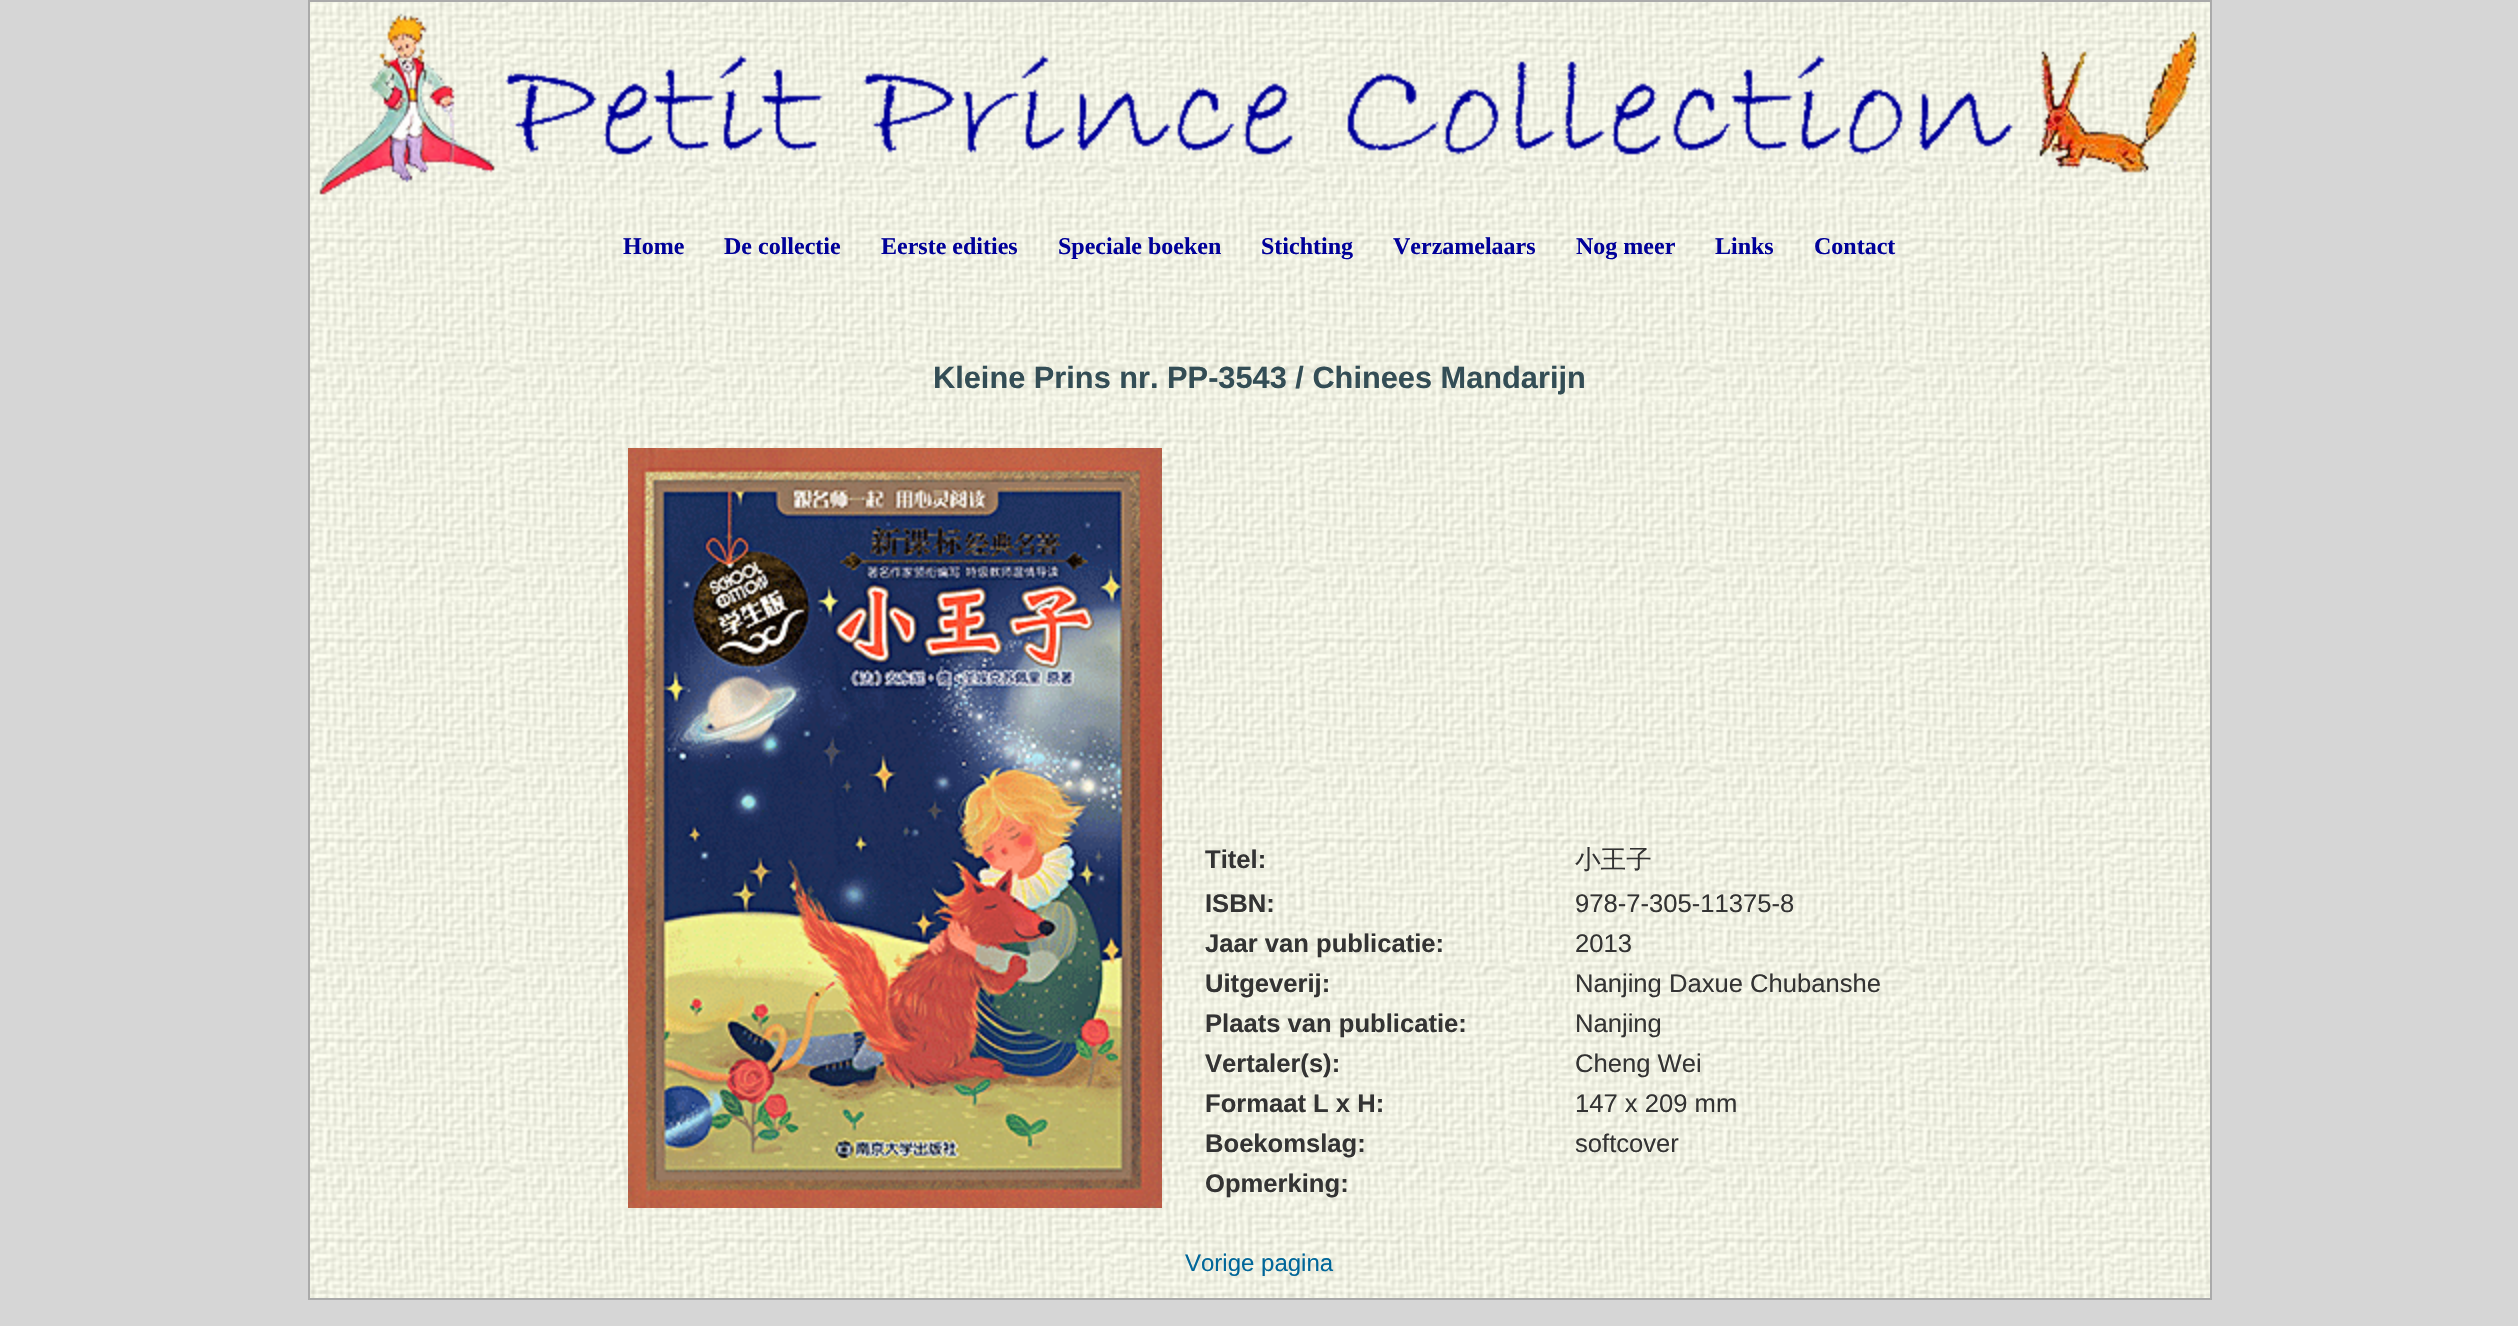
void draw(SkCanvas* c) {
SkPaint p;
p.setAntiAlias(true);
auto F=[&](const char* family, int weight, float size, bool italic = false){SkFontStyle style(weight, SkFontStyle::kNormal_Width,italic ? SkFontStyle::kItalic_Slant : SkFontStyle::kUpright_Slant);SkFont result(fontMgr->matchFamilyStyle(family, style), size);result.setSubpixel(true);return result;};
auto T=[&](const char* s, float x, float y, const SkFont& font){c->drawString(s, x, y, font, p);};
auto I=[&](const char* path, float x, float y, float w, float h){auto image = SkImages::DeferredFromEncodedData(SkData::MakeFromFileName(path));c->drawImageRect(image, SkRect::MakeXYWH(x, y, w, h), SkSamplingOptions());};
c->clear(0xffd6d6d6);
I("1.png",310,2,1900,1296);
p.setStroke(true);
p.setStrokeWidth(2);
p.setColor(0xffaaaaaa);
c->drawRect(SkRect::MakeXYWH(309,1,1902,1298),p);
I("2.png",319,13,1878,182);
auto f1 = F("Liberation Serif",700,24);
p.setStroke(false);
p.setColor(0xff000099);
T("Home",623,254,f1);
T("De collectie",724,254,f1);
T("Eerste edities",881,254,f1);
T("Speciale boeken",1058,254,f1);
T("Stichting",1261,254,f1);
T("Verzamelaars",1393,254,f1);
T("Nog meer",1576,254,f1);
T("Links",1715,254,f1);
T("Contact",1814,254,f1);
auto f2 = F("Liberation Sans",700,30.75);
p.setColor(0xff334d55);
T("Kleine Prins nr. PP-3543 / Chinees Mandarijn",933,388,f2);
I("3.png",628,448,534,760);
auto f3 = F("Liberation Sans",700,25.6);
p.setColor(0xff333333);
T("Titel:",1205,868,f3);
auto f4 = F("WenQuanYi Zen Hei",500,25.6);
T("小王子",1575,868,f4);
T("ISBN:",1205,912,f3);
auto f5 = F("Liberation Sans",400,25.6);
T("978-7-305-11375-8",1575,912,f5);
T("Jaar van publicatie:",1205,952,f3);
T("2013",1575,952,f5);
T("Uitgeverij:",1205,992,f3);
T("Nanjing Daxue Chubanshe",1575,992,f5);
T("Plaats van publicatie:",1205,1032,f3);
T("Nanjing",1575,1032,f5);
T("Vertaler(s):",1205,1072,f3);
T("Cheng Wei",1575,1072,f5);
T("Formaat L x H:",1205,1112,f3);
T("147 x 209 mm",1575,1112,f5);
T("Boekomslag:",1205,1152,f3);
T("softcover",1575,1152,f5);
T("Opmerking:",1205,1192,f3);
auto f6 = F("Liberation Sans",400,24);
p.setColor(0xff006699);
T("Vorige pagina",1185,1271,f6);
}
